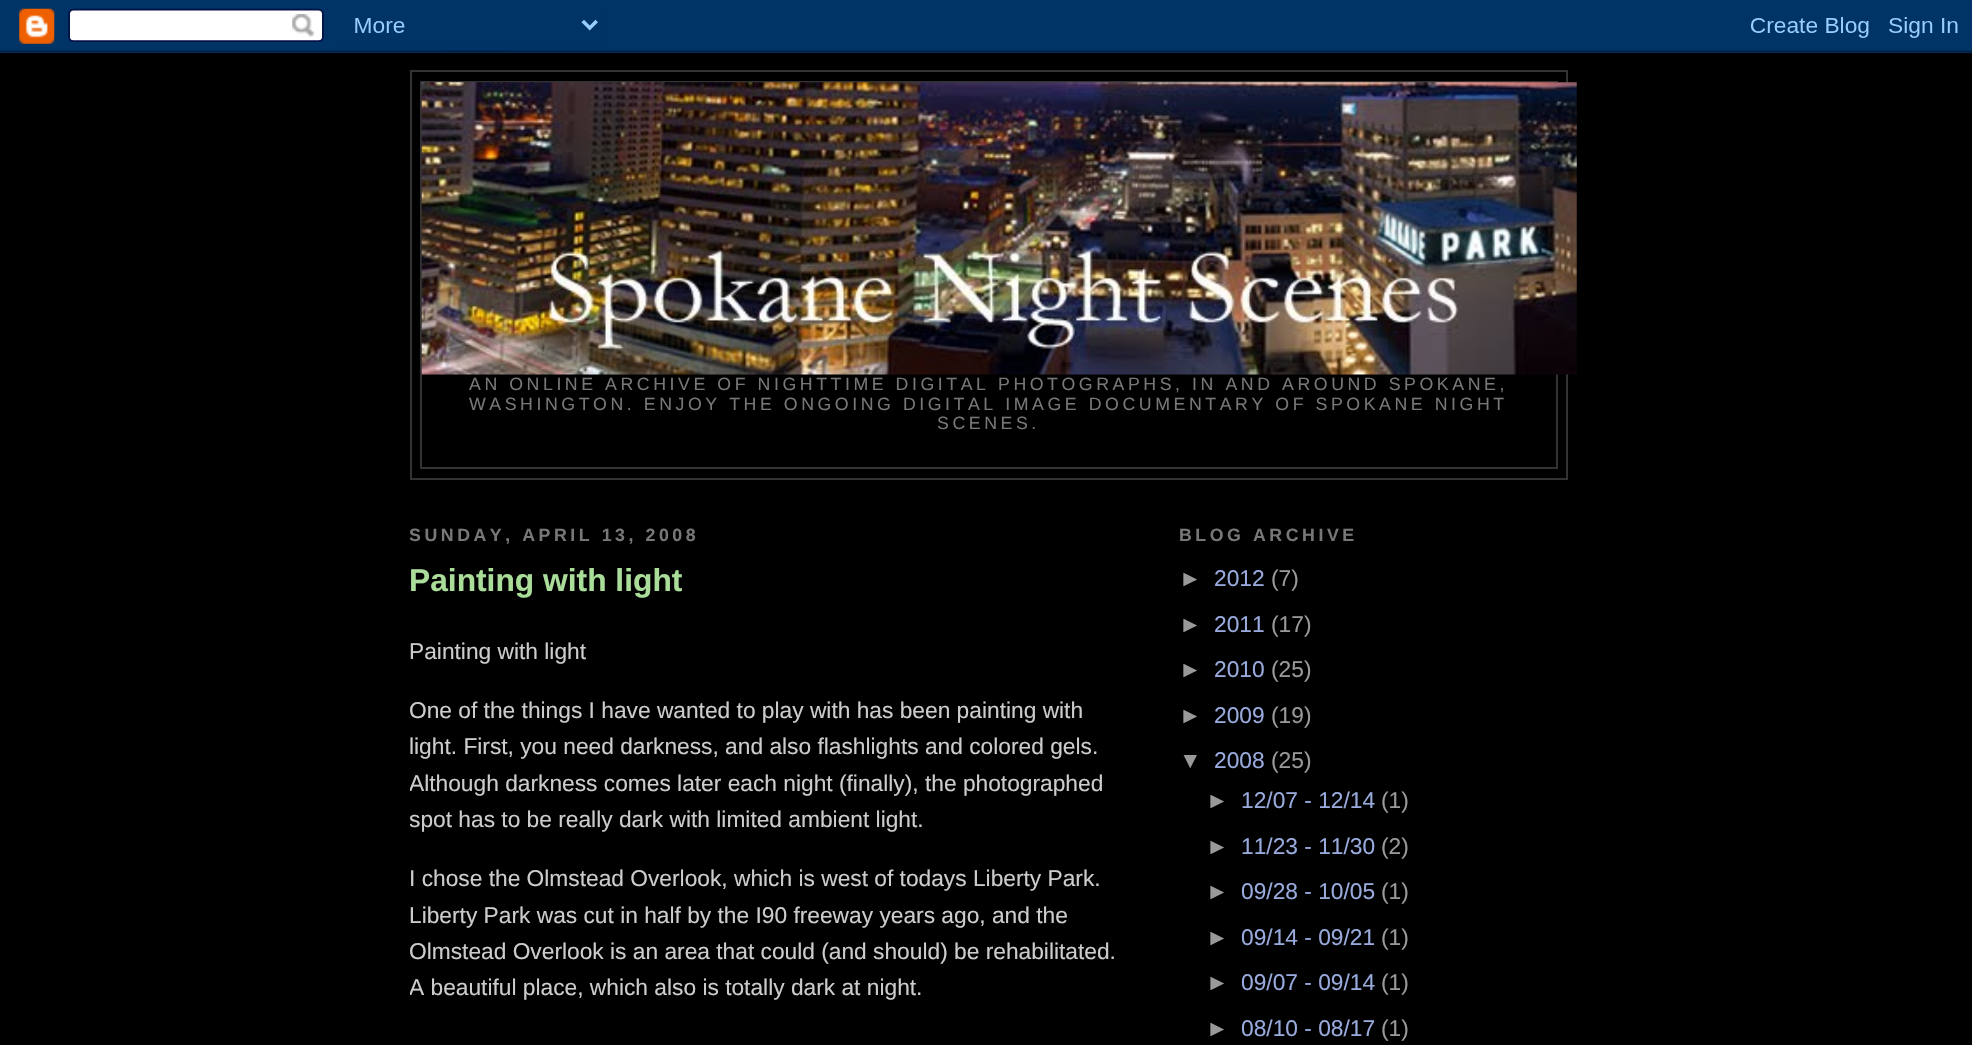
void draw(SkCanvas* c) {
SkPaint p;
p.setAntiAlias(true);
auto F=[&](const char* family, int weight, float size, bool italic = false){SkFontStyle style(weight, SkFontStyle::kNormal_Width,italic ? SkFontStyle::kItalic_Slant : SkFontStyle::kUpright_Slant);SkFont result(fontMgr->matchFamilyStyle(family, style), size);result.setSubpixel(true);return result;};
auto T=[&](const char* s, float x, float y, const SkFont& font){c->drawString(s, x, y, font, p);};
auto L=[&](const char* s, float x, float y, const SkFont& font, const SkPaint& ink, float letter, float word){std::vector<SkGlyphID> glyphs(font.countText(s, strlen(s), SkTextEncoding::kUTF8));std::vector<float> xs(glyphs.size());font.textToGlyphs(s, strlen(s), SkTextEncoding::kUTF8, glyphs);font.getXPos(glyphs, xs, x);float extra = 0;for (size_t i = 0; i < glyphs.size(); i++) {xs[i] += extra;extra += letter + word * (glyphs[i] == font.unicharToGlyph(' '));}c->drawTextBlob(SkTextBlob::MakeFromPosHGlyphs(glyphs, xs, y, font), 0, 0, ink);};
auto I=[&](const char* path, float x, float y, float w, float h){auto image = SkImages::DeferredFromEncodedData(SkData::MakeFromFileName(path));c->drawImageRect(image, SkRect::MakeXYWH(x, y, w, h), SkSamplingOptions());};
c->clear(0xff000000);
I("1.png",0,0,1972,53);
p.setStroke(true);
p.setStrokeWidth(2);
p.setColor(0xff333333);
c->drawRect(SkRect::MakeXYWH(411,71,1156,408),p);
c->drawRect(SkRect::MakeXYWH(421,82,1136,386),p);
I("2.png",421,82,1156,293);
auto f1 = F("Liberation Sans",400,17.75);
p.setStroke(false);
p.setColor(0xff777777);
L("AN ONLINE ARCHIVE OF NIGHTTIME DIGITAL PHOTOGRAPHS, IN AND AROUND SPOKANE,",469,390,f1,p,3.55,0);
L("WASHINGTON. ENJOY THE ONGOING DIGITAL IMAGE DOCUMENTARY OF SPOKANE NIGHT",469,410,f1,p,3.55,0);
L("SCENES.",937,429,f1,p,3.55,0);
c->save();
c->clipRect(SkRect::MakeXYWH(410,497,717,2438));
auto f2 = F("Liberation Sans",700,17.75);
L("SUNDAY, APRIL 13, 2008",409,541,f2,p,3.55,0);
c->restore();
auto f3 = F("Liberation Sans",700,31.75);
p.setColor(0xffaadd99);
T("Painting with light",409,591,f3);
auto f4 = F("Liberation Sans",400,22.75);
p.setColor(0xffcccccc);
T("Painting with light",409,659,f4);
c->save();
c->clipRect(SkRect::MakeXYWH(410,497,717,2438));
T("One of the things I have wanted to play with has been painting with",409,718,f4);
c->restore();
T("light. First, you need darkness, and also flashlights and colored gels.",409,754,f4);
c->save();
c->clipRect(SkRect::MakeXYWH(410,497,717,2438));
T("Although darkness comes later each night (finally), the photographed",409,791,f4);
T("spot has to be really dark with limited ambient light.",409,827,f4);
c->restore();
T("I chose the Olmstead Overlook, which is west of todays Liberty Park.",409,886,f4);
T("Liberty Park was cut in half by the I90 freeway years ago, and the",409,923,f4);
c->save();
c->clipRect(SkRect::MakeXYWH(410,497,717,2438));
T("Olmstead Overlook is an area that could (and should) be rehabilitated.",409,959,f4);
T("A beautiful place, which also is totally dark at night.",409,995,f4);
c->restore();
c->save();
c->clipRect(SkRect::MakeXYWH(1180,497,385,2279));
p.setColor(0xff777777);
L("BLOG ARCHIVE",1179,541,f2,p,3.55,0);
c->restore();
p.setColor(0xff999999);
T("►",1179,586,f4);
p.setColor(0xff99aadd);
T("2012",1214,586,f4);
p.setColor(0xff999999);
T("(7)",1271,586,f4);
T("►",1179,632,f4);
p.setColor(0xff99aadd);
T("2011",1214,632,f4);
p.setColor(0xff999999);
T("(17)",1271,632,f4);
T("►",1179,677,f4);
p.setColor(0xff99aadd);
T("2010",1214,677,f4);
p.setColor(0xff999999);
T("(25)",1271,677,f4);
T("►",1179,723,f4);
p.setColor(0xff99aadd);
T("2009",1214,723,f4);
p.setColor(0xff999999);
T("(19)",1271,723,f4);
T("▼",1179,768,f4);
p.setColor(0xff99aadd);
T("2008",1214,768,f4);
p.setColor(0xff999999);
T("(25)",1271,768,f4);
T("►",1206,808,f4);
p.setColor(0xff99aadd);
T("12/07 - 12/14",1241,808,f4);
p.setColor(0xff999999);
T("(1)",1381,808,f4);
T("►",1206,854,f4);
p.setColor(0xff99aadd);
T("11/23 - 11/30",1241,854,f4);
p.setColor(0xff999999);
T("(2)",1381,854,f4);
T("►",1206,899,f4);
p.setColor(0xff99aadd);
T("09/28 - 10/05",1241,899,f4);
p.setColor(0xff999999);
T("(1)",1381,899,f4);
T("►",1206,945,f4);
p.setColor(0xff99aadd);
T("09/14 - 09/21",1241,945,f4);
p.setColor(0xff999999);
T("(1)",1381,945,f4);
T("►",1206,990,f4);
p.setColor(0xff99aadd);
T("09/07 - 09/14",1241,990,f4);
p.setColor(0xff999999);
T("(1)",1381,990,f4);
T("►",1206,1036,f4);
p.setColor(0xff99aadd);
T("08/10 - 08/17",1241,1036,f4);
p.setColor(0xff999999);
T("(1)",1381,1036,f4);
}
